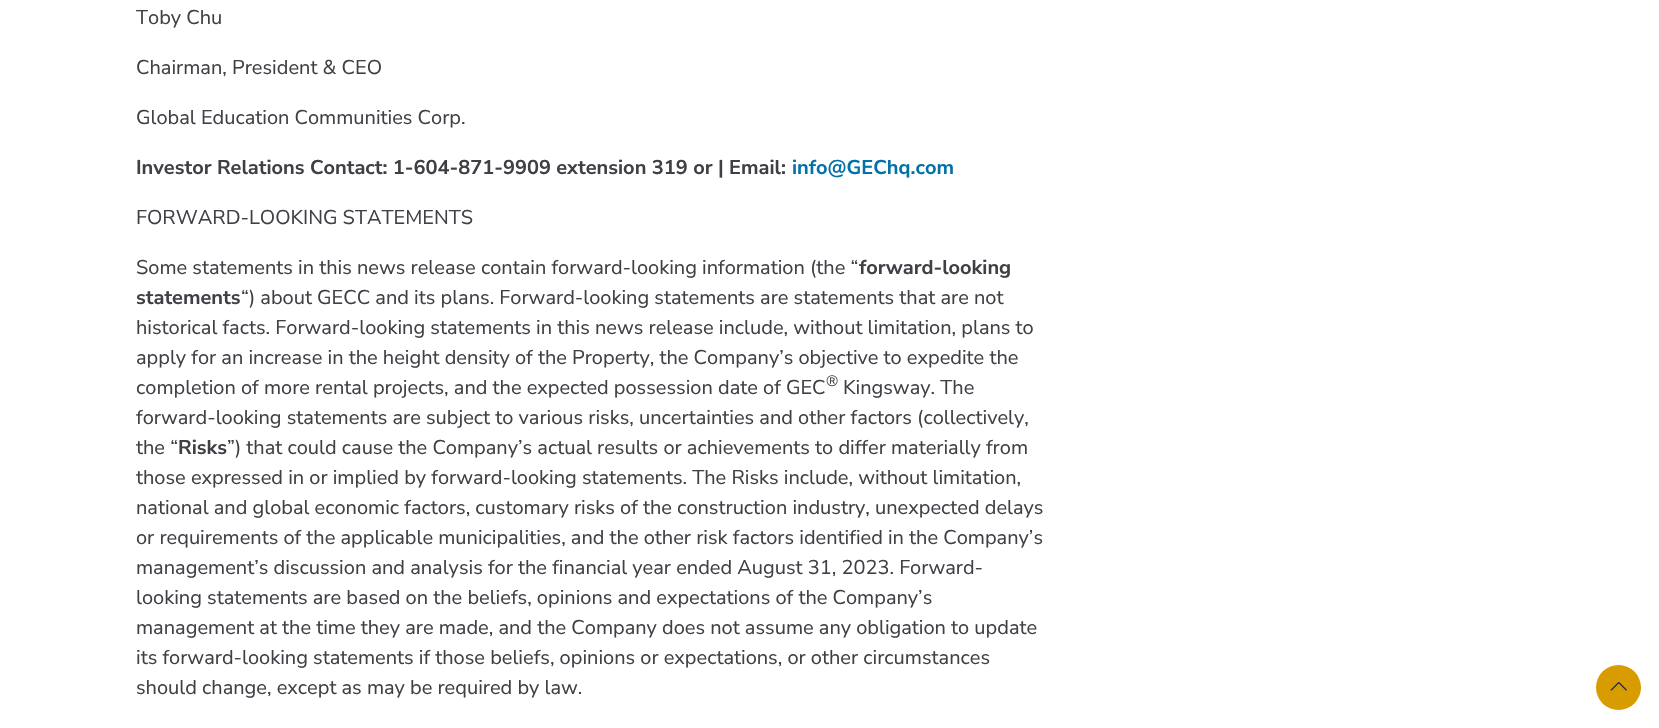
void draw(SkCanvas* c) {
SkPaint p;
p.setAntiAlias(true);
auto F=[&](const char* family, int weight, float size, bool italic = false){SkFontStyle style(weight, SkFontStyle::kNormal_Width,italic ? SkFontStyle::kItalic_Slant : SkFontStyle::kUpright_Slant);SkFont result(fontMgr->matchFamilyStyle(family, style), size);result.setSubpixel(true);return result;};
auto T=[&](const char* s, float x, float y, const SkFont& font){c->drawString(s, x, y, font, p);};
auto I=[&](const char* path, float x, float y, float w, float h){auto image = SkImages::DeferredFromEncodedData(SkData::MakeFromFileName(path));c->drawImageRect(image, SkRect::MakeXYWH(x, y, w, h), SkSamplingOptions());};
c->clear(0xffffffff);
auto f1 = F("Nunito Sans",400,20);
p.setColor(0xff3f4046);
T("Toby Chu",136,24,f1);
T("Chairman, President & CEO",136,74,f1);
T("Global Education Communities Corp.",136,124,f1);
auto f2 = F("Nunito Sans",700,20);
T("Investor Relations Contact: 1-604-871-9909 extension 319 or | Email:",136,174,f2);
p.setColor(0xff0071a9);
T("info@GEChq.com",792,174,f2);
p.setColor(0xff3f4046);
T("FORWARD-LOOKING STATEMENTS",136,224,f1);
T("Some statements in this news release contain forward-looking information (the “",136,274,f1);
T("forward-looking",859,274,f2);
T("statements",136,304,f2);
T("“) about GECC and its plans. Forward-looking statements are statements that are not",241,304,f1);
T("historical facts. Forward-looking statements in this news release include, without limitation, plans to",136,334,f1);
T("apply for an increase in the height density of the Property, the Company’s objective to expedite the",136,364,f1);
T("completion of more rental projects, and the expected possession date of GEC",136,394,f1);
auto f3 = F("Nunito Sans",400,15);
T("®",826,386,f3);
T("Kingsway. The",843,394,f1);
T("forward-looking statements are subject to various risks, uncertainties and other factors (collectively,",136,424,f1);
T("the “",136,454,f1);
T("Risks",178,454,f2);
T("”) that could cause the Company’s actual results or achievements to differ materially from",227,454,f1);
T("those expressed in or implied by forward-looking statements. The Risks include, without limitation,",136,484,f1);
T("national and global economic factors, customary risks of the construction industry, unexpected delays",136,514,f1);
T("or requirements of the applicable municipalities, and the other risk factors identified in the Company’s",136,544,f1);
T("management’s discussion and analysis for the financial year ended August 31, 2023. Forward-",136,574,f1);
T("looking statements are based on the beliefs, opinions and expectations of the Company’s",136,604,f1);
T("management at the time they are made, and the Company does not assume any obligation to update",136,634,f1);
T("its forward-looking statements if those beliefs, opinions or expectations, or other circumstances",136,664,f1);
T("should change, except as may be required by law.",136,694,f1);
p.setColor(0xffd89b00);
c->drawCircle(1618.5,687.5,22.5,p);
I("1.png",1610,681,17,10);
}
